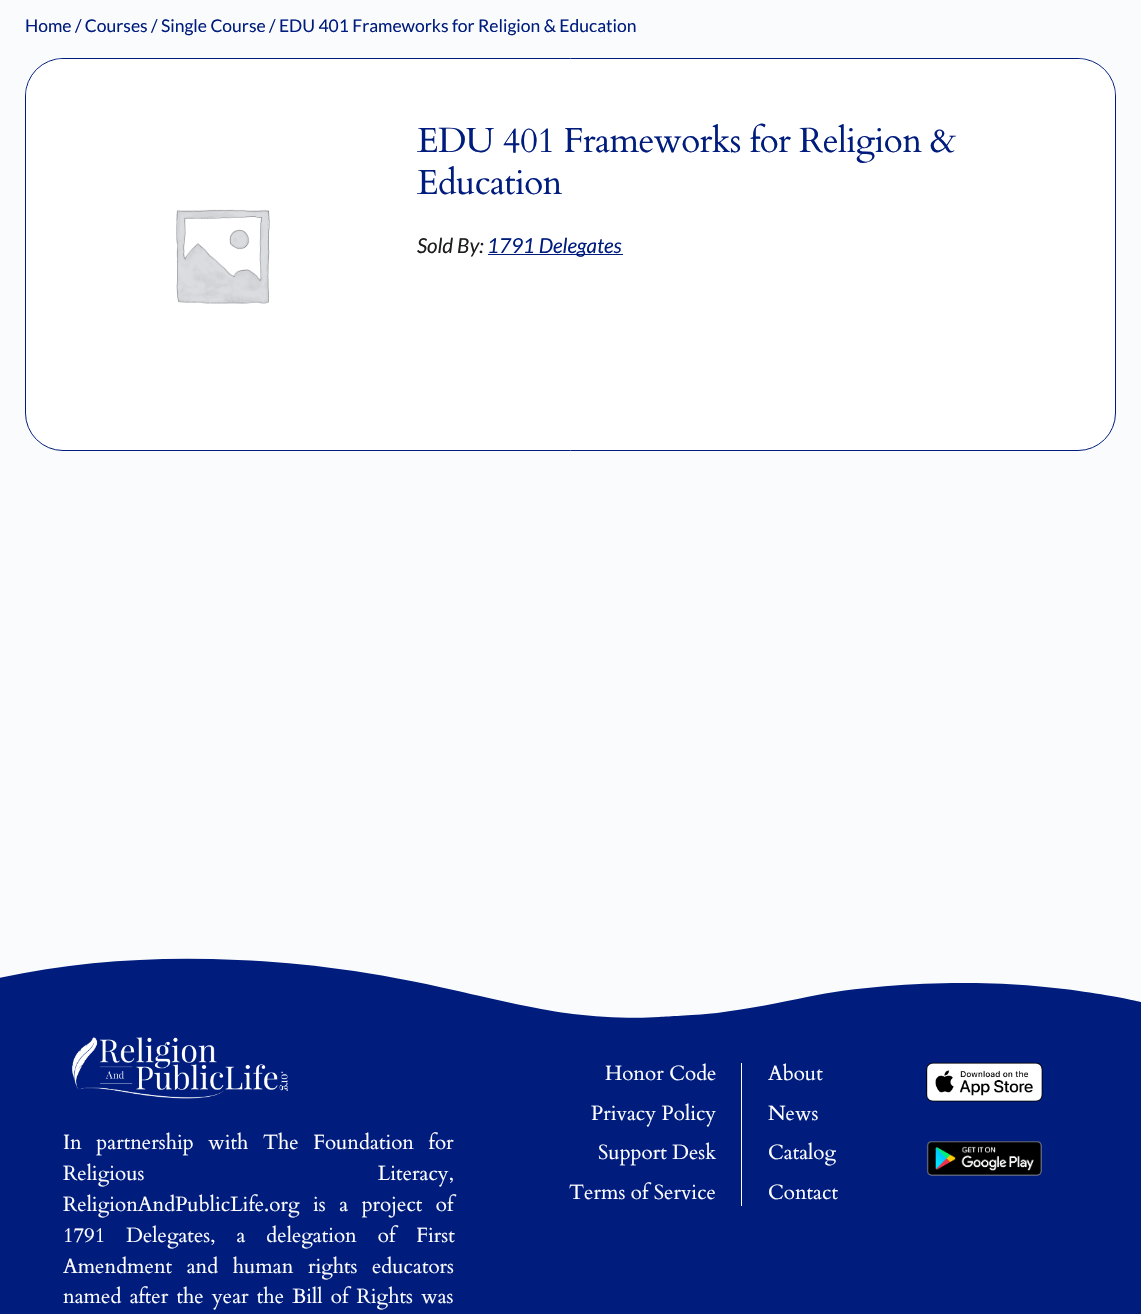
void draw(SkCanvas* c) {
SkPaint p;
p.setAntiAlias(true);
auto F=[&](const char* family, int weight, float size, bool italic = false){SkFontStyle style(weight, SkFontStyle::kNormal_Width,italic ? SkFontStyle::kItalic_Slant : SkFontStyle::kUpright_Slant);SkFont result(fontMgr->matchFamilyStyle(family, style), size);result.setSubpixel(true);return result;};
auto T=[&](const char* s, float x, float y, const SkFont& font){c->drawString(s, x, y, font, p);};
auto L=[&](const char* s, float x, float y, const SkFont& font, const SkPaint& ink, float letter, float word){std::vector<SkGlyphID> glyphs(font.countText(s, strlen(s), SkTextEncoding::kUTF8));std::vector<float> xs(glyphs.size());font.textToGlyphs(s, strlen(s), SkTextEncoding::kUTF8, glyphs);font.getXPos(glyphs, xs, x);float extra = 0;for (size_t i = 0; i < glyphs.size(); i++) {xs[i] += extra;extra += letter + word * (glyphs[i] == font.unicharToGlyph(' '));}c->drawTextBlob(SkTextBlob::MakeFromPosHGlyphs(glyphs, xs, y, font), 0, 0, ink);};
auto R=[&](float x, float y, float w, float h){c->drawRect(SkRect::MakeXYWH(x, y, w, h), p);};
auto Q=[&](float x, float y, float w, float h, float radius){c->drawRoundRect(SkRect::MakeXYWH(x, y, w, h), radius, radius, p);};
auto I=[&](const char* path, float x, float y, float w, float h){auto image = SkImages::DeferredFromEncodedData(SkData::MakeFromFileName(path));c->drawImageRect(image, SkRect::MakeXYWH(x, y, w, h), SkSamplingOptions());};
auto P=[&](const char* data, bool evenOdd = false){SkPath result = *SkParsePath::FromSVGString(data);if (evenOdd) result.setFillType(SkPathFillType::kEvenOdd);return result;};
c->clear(0xfffafbfd);
auto f1 = F("Lato",400,17.5);
p.setColor(0xff001c7d);
T("Home / Courses / Single Course / EDU 401 Frameworks for Religion & Education",25,32,f1);
p.setColor(0xffffffff);
c->drawRoundRect(SkRect::MakeXYWH(25.5,58.5,1090,392),37.5,37.5,p);
p.setStroke(true);
p.setStrokeWidth(1);
p.setColor(0xff001c7d);
c->drawRoundRect(SkRect::MakeXYWH(25.5,58.5,1090,392),37.5,37.5,p);
p.setStroke(false);
p.setColor(0xffffffff);
Q(26,59,359,350,38);
I("1.png",176,209,94,95);
Q(385,59,730,350,38);
auto f2 = F("Cardo",400,35);
p.setColor(0xff001c7d);
L("EDU 401 Frameworks for Religion &",417,152,f2,p,-.6,0);
L("Education",417,194,f2,p,-.6,0);
auto f3 = F("Lato",400,20.6,true);
p.setColor(0xff1c1d1e);
T("Sold By:",417,253,f3);
p.setColor(0xff001c7d);
R(488,254,135,1);
T("1791 Delegates",487,253,f3);
R(0,958,1141,356);
p.setColor(0xfffafbfd);
c->drawPath(P("M238 960c68 3 133 11 220 31c34 8 88 20 115 23c27 3 60 5 86 3c12-1 26-1 58-4c31-4 66-11 90-16c47-10 109-14 153-14c99-1 181 19 181 19v-46h-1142v22c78-17 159-22 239-18z"),p);
I("2.png",72,1037,216,62);
auto f4 = F("Cardo",400,20.6);
p.setColor(0xffffffff);
L("In partnership with The Foundation for",63,1149,f4,p,0,9);
L("Religious Literacy,",63,1180,f4,p,0,228);
L("ReligionAndPublicLife.org is a project of",63,1211,f4,p,0,8);
L("1791 Delegates, a delegation of First",63,1242,f4,p,0,15.5);
L("Amendment and human rights educators",63,1273,f4,p,0,9);
L("named after the year the Bill of Rights was",63,1303,f4,p,0,2.75);
R(741,1063,1,143);
T("Honor Code",605,1080,f4);
T("Privacy Policy",591,1120,f4);
T("Support Desk",598,1159,f4);
T("Terms of Service",569,1199,f4);
T("About",768,1080,f4);
T("News",768,1120,f4);
T("Catalog",768,1159,f4);
T("Contact",768,1199,f4);
I("3.png",926,1062,117,40);
I("4.png",926,1141,116,35);
}
